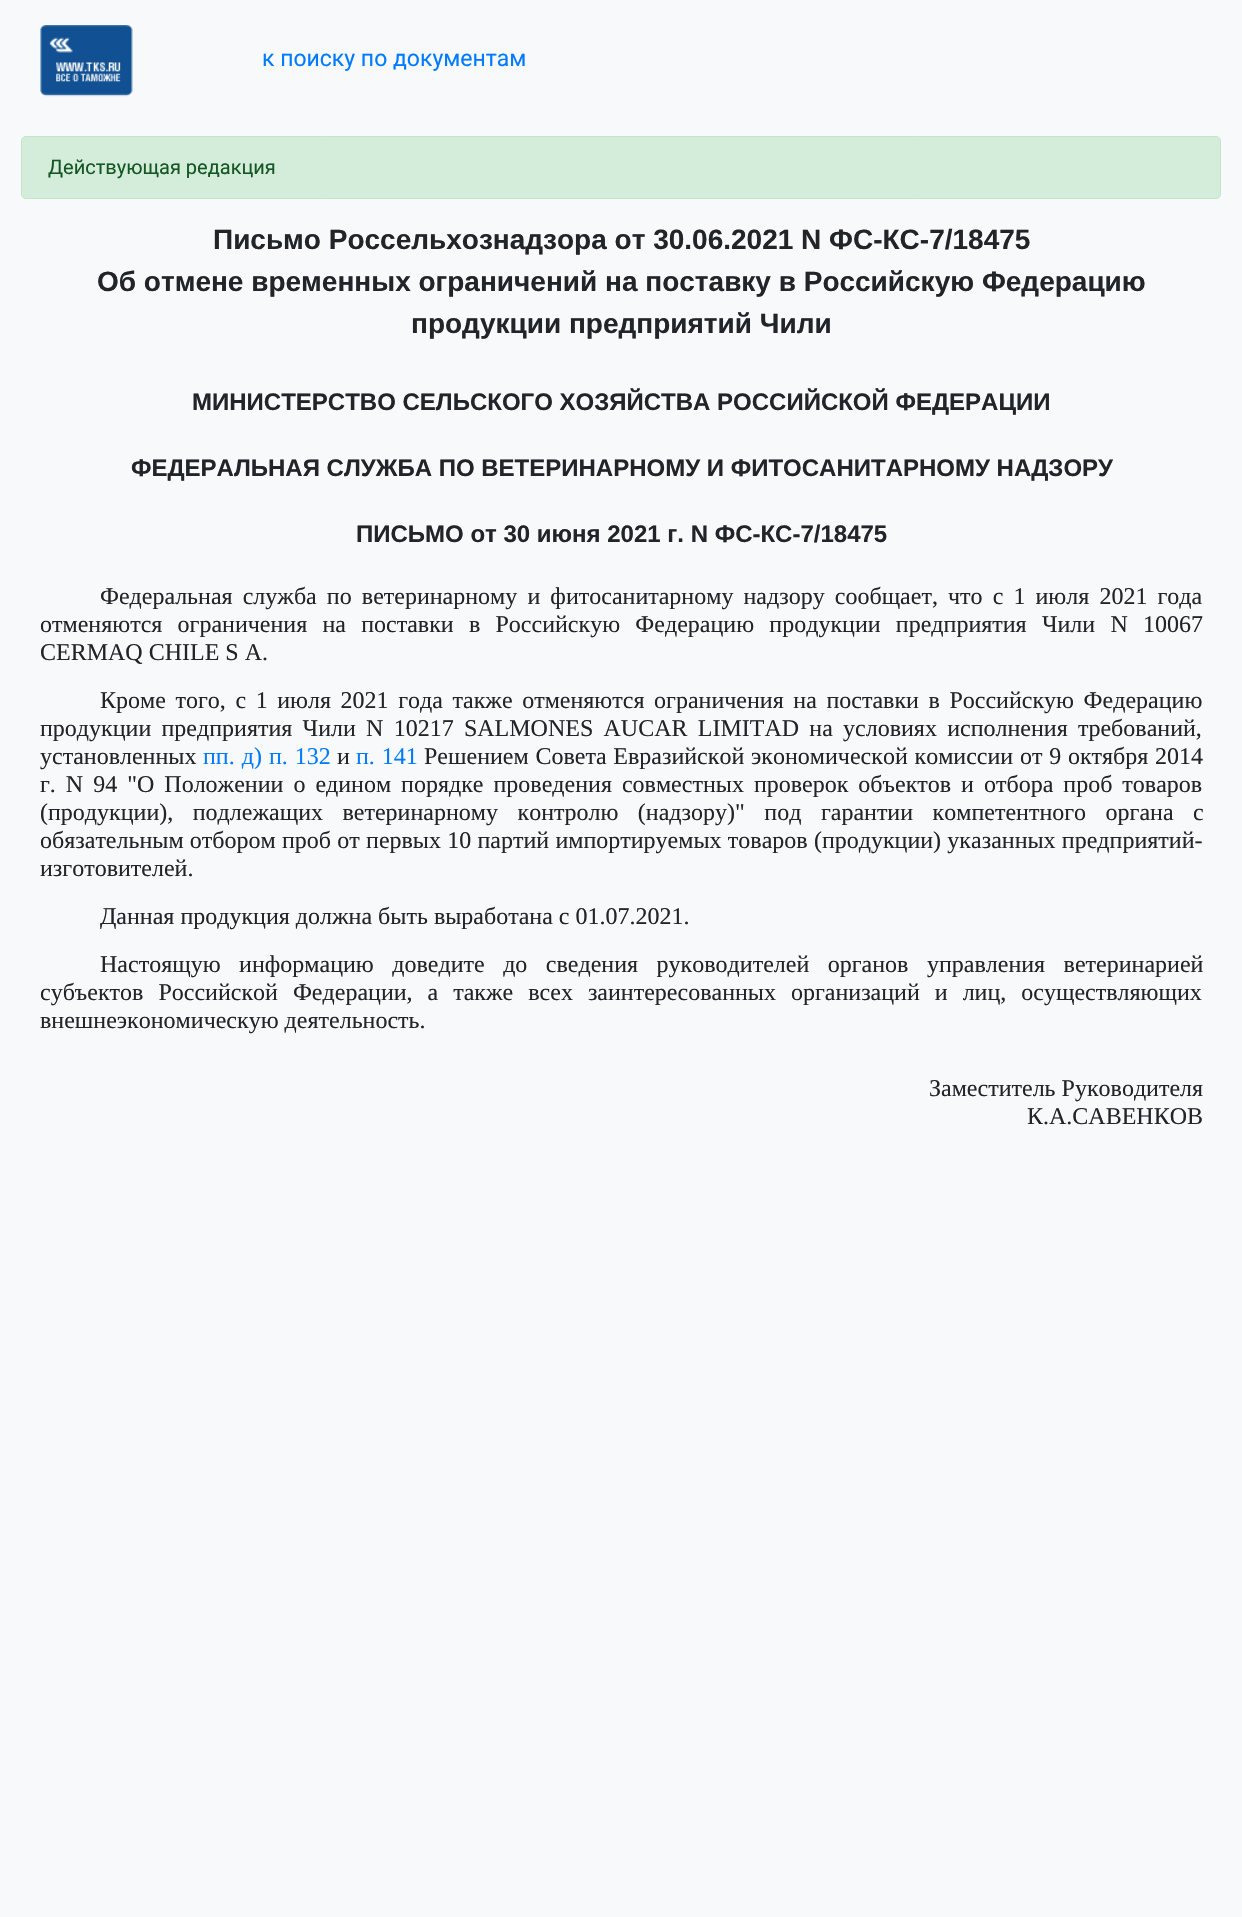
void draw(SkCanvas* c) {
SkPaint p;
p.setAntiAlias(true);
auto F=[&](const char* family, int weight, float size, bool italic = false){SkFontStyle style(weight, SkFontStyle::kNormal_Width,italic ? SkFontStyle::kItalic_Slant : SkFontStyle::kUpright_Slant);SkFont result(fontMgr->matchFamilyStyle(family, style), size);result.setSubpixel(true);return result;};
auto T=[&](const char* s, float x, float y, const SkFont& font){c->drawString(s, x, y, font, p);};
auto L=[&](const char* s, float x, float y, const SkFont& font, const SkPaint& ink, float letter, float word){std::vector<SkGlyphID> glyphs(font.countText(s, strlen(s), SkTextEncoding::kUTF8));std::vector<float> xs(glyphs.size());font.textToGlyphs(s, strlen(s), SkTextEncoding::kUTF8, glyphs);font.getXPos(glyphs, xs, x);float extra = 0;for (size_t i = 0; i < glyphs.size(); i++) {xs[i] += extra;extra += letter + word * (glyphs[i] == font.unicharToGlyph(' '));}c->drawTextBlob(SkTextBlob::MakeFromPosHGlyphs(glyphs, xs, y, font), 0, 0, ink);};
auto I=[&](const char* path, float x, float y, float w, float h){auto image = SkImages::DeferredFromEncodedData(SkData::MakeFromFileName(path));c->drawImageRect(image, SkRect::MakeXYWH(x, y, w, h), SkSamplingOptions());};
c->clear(0xfff8f9fa);
I("1.png",40,25,93,72);
auto f1 = F("Roboto",400,23);
p.setColor(0xff007bff);
T("к поиску по документам",262,66,f1);
p.setColor(0xffd4edda);
c->drawRoundRect(SkRect::MakeXYWH(21.5,136.5,1199,62),4.5,4.5,p);
p.setStroke(true);
p.setStrokeWidth(1);
p.setColor(0xffc3e6cb);
c->drawRoundRect(SkRect::MakeXYWH(21.5,136.5,1199,62),4.5,4.5,p);
auto f2 = F("Roboto",400,20);
p.setStroke(false);
p.setColor(0xff155724);
T("Действующая редакция",48,174,f2);
auto f3 = F("Liberation Sans",700,28);
p.setColor(0xff212529);
T("Письмо Россельхознадзора от 30.06.2021 N ФС-КС-7/18475",213,249,f3);
T("Об отмене временных ограничений на поставку в Российскую Федерацию",97,291,f3);
T("продукции предприятий Чили",411,333,f3);
auto f4 = F("Liberation Sans",700,24);
T("МИНИСТЕРСТВО СЕЛЬСКОГО ХОЗЯЙСТВА РОССИЙСКОЙ ФЕДЕРАЦИИ",192,410,f4);
T("ФЕДЕРАЛЬНАЯ СЛУЖБА ПО ВЕТЕРИНАРНОМУ И ФИТОСАНИТАРНОМУ НАДЗОРУ",131,476,f4);
T("ПИСЬМО от 30 июня 2021 г. N ФС-КС-7/18475",356,542,f4);
auto f5 = F("Liberation Serif",400,24);
L("Федеральная служба по ветеринарному и фитосанитарному надзору сообщает, что с 1 июля 2021 года",100,604,f5,p,0,4.1);
L("отменяются ограничения на поставки в Российскую Федерацию продукции предприятия Чили N 10067",40,632,f5,p,0,9.25);
T("CERMAQ CHILE S A.",40,660,f5);
L("Кроме того, с 1 июля 2021 года также отменяются ограничения на поставки в Российскую Федерацию",100,708,f5,p,0,3.6);
L("продукции предприятия Чили N 10217 SALMONES AUCAR LIMITAD на условиях исполнения требований,",40,736,f5,p,0,4.25);
T("установленных",40,764,f5);
p.setColor(0xff007bff);
L("пп. д) п. 132",203,764,f5,p,0,1);
p.setColor(0xff212529);
T("и",337,764,f5);
p.setColor(0xff007bff);
L("п. 141",356,764,f5,p,0,1);
p.setColor(0xff212529);
L("Решением Совета Евразийской экономической комиссии от 9 октября 2014",424,764,f5,p,0,.75);
L("г. N 94 \"О Положении о едином порядке проведения совместных проверок объектов и отбора проб товаров",40,792,f5,p,0,4);
L("(продукции), подлежащих ветеринарному контролю (надзору)\" под гарантии компетентного органа с",40,820,f5,p,0,13.5);
L("обязательным отбором проб от первых 10 партий импортируемых товаров (продукции) указанных предприятий-",40,848,f5,p,0,.25);
T("изготовителей.",40,876,f5);
T("Данная продукция должна быть выработана с 01.07.2021.",100,924,f5);
L("Настоящую информацию доведите до сведения руководителей органов управления ветеринарией",100,972,f5,p,0,12.5);
L("субъектов Российской Федерации, а также всех заинтересованных организаций и лиц, осуществляющих",40,1000,f5,p,0,9);
T("внешнеэкономическую деятельность.",40,1028,f5);
T("Заместитель Руководителя",929,1096,f5);
T("К.А.САВЕНКОВ",1027,1124,f5);
}
